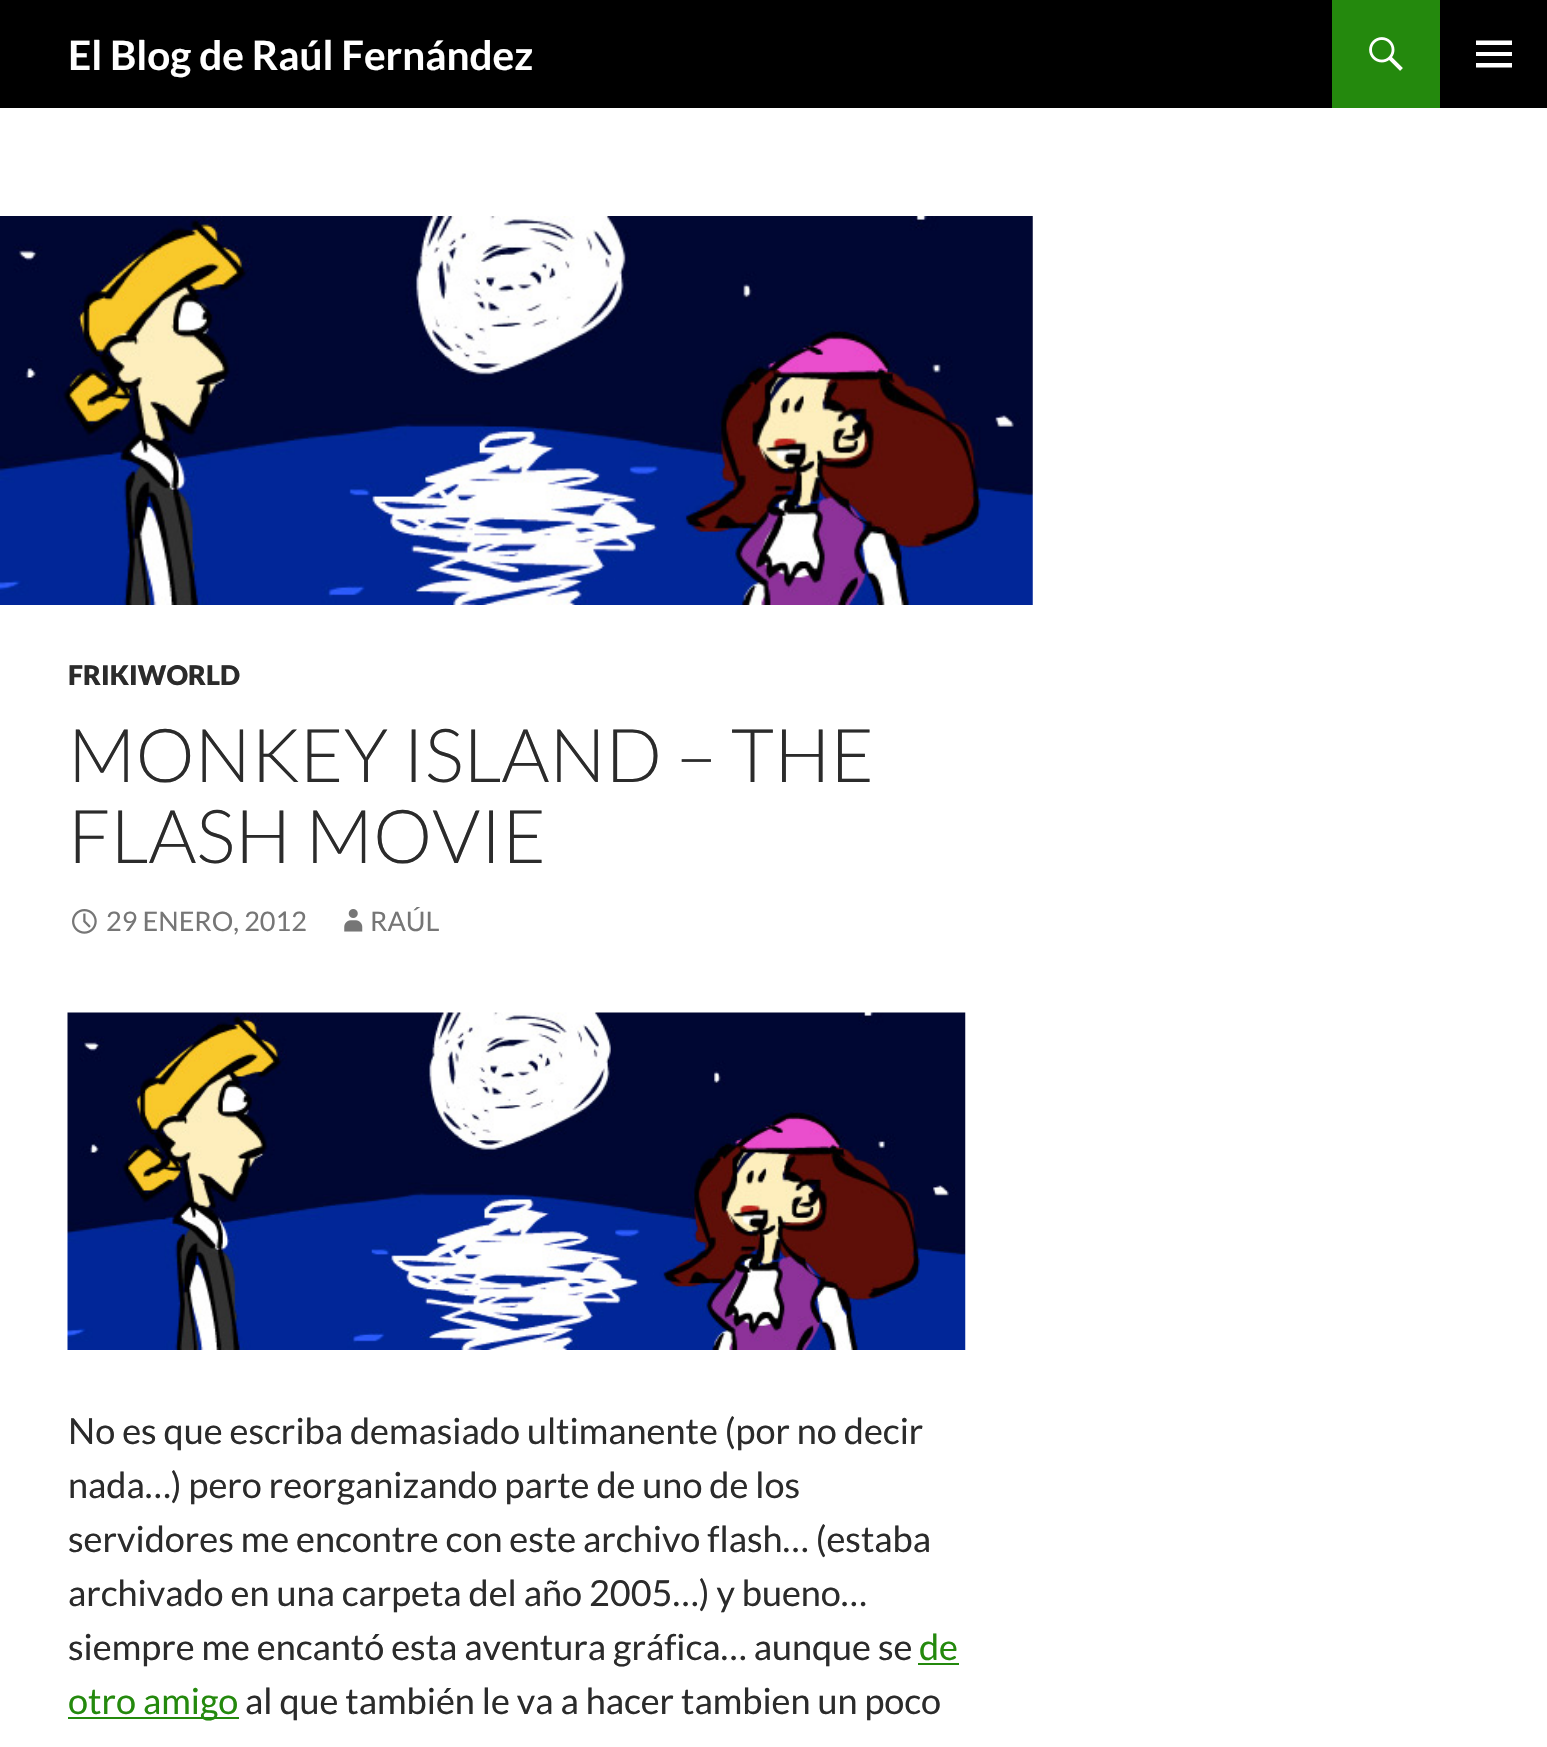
void draw(SkCanvas* c) {
SkPaint p;
p.setAntiAlias(true);
auto F=[&](const char* family, int weight, float size, bool italic = false){SkFontStyle style(weight, SkFontStyle::kNormal_Width,italic ? SkFontStyle::kItalic_Slant : SkFontStyle::kUpright_Slant);SkFont result(fontMgr->matchFamilyStyle(family, style), size);result.setSubpixel(true);return result;};
auto T=[&](const char* s, float x, float y, const SkFont& font){c->drawString(s, x, y, font, p);};
auto R=[&](float x, float y, float w, float h){c->drawRect(SkRect::MakeXYWH(x, y, w, h), p);};
auto I=[&](const char* path, float x, float y, float w, float h){auto image = SkImages::DeferredFromEncodedData(SkData::MakeFromFileName(path));c->drawImageRect(image, SkRect::MakeXYWH(x, y, w, h), SkSamplingOptions());};
auto P=[&](const char* data, bool evenOdd = false){SkPath result = *SkParsePath::FromSVGString(data);if (evenOdd) result.setFillType(SkPathFillType::kEvenOdd);return result;};
c->clear(0xffffffff);
p.setColor(0xff000000);
R(0,0,1547,108);
auto f1 = F("Lato",700,40.5);
p.setColor(0xffffffff);
T("El Blog de Raúl Fernández",68,70,f1);
p.setColor(0xff24890d);
R(1332,0,108,108);
I("1.png",1369,37,34,34);
p.setColor(0xffffffff);
c->drawPath(P("M1476 67.5v-4.5h36v4.5zm0-11.5v-4h36v4zm0-11v-4.5h36v4.5z"),p);
I("2.png",1032,217,1,388);
I("3.png",0,216,1033,389);
auto f2 = F("Lato",900,27);
p.setColor(0xff2b2b2b);
T("FRIKIWORLD",68,685,f2);
auto f3 = F("Lato",300,74.25);
T("MONKEY ISLAND – THE",68,782,f3);
T("FLASH MOVIE",68,863,f3);
I("4.png",72,909,25,25);
auto f4 = F("Lato",400,27);
p.setColor(0xff767676);
T("29 ENERO, 2012",106,931,f4);
I("5.png",344,909,19,23);
T("RAÚL",370,931,f4);
I("6.png",67,1012,899,338);
auto f5 = F("Lato",400,36);
p.setColor(0xff2b2b2b);
T("No es que escriba demasiado ultimanente (por no decir",68,1444,f5);
T("nada…) pero reorganizando parte de uno de los",68,1498,f5);
T("servidores me encontre con este archivo flash… (estaba",68,1552,f5);
T("archivado en una carpeta del año 2005…) y bueno…",68,1606,f5);
T("siempre me encantó esta aventura gráfica… aunque se",68,1660,f5);
p.setColor(0xff24890d);
T("de",919,1660,f5);
R(918,1663,41,2);
R(68,1717,171,2);
T("otro amigo",68,1714,f5);
p.setColor(0xff2b2b2b);
T("al que también le va a hacer tambien un poco",245,1714,f5);
}
